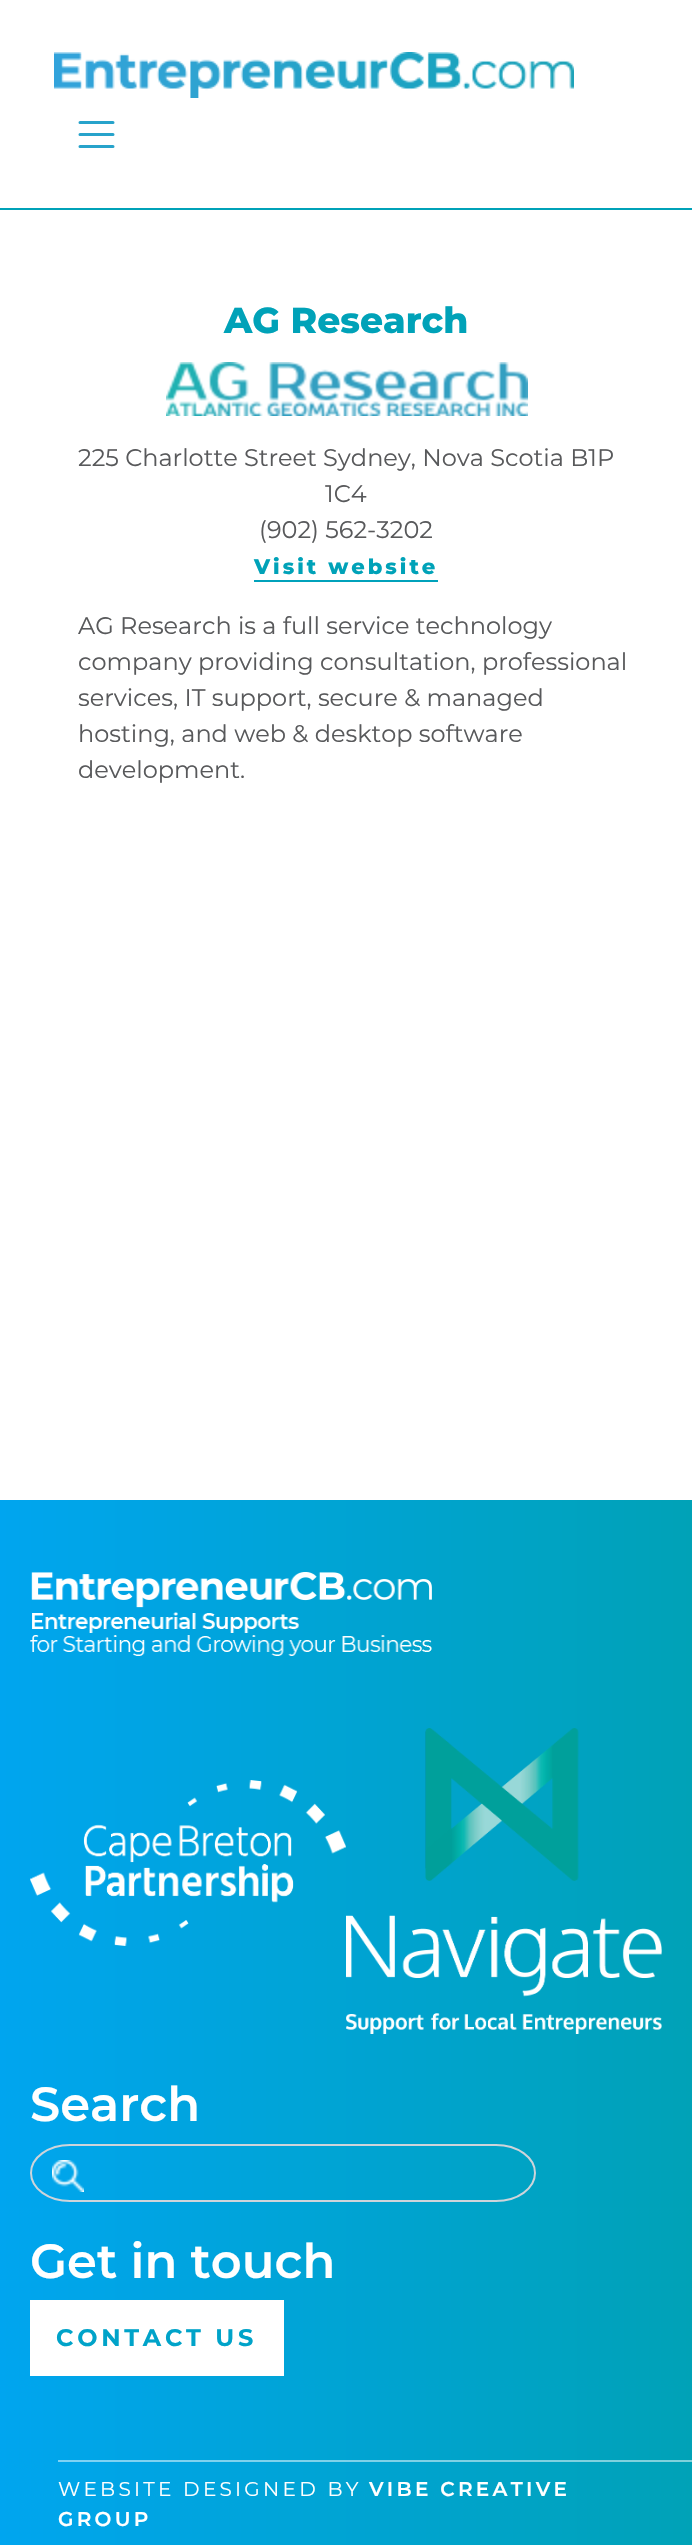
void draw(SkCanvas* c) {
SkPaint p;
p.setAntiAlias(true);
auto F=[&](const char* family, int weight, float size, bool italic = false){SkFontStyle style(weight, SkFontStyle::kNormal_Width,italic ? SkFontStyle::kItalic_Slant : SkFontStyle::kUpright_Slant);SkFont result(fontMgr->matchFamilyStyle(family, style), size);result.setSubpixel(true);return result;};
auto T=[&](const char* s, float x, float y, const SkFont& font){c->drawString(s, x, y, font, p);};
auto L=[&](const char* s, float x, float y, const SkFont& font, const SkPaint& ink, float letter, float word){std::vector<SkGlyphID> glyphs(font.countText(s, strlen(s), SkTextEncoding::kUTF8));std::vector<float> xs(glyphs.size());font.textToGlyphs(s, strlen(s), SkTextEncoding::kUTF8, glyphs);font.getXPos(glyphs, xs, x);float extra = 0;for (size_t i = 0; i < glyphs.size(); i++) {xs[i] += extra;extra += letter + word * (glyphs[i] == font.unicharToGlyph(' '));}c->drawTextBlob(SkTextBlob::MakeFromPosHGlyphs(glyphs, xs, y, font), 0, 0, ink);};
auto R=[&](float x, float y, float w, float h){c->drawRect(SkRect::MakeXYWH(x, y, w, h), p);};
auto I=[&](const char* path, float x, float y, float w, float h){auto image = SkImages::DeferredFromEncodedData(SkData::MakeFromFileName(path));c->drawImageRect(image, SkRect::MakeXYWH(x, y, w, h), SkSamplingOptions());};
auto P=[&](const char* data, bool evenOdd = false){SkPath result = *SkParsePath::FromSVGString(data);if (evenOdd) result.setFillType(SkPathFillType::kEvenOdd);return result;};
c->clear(0xffffffff);
p.setColor(0xff00a2b8);
R(0,208,692,2);
I("1.png",54,52,520,46);
p.setStroke(true);
p.setStrokeWidth(3);
p.setStrokeCap(SkPaint::kRound_Cap);
p.setColor(0xff27a3cb);
c->drawPath(P("M80 122.5h33m-33 12h33m-33 12h33"),p);
auto f1 = F("Montserrat",800,36);
p.setStroke(false);
p.setColor(0xff00a2b8);
T("AG Research",224,333,f1);
I("2.png",166,362,362,54);
auto f2 = F("Montserrat",400,24);
p.setColor(0xff58595b);
T("225 Charlotte Street Sydney, Nova Scotia B1P",78,466,f2);
T("1C4",325,502,f2);
T("(902) 562-3202",259,538,f2);
auto f3 = F("Montserrat",800,21);
p.setColor(0xff00a2b8);
L("Visit website",254,574,f3,p,3,0);
p.setColor(0xff00a2bb);
R(254,580,184,2);
p.setColor(0xff58595b);
T("AG Research is a full service technology",78,634,f2);
T("company providing consultation, professional",78,670,f2);
T("services, IT support, secure & managed",78,706,f2);
T("hosting, and web & desktop software",78,742,f2);
T("development.",78,778,f2);
{
const SkColor colors[] = {0xff00a5ef,0xff00a2b7};
const float stops[] = {0,1};
const SkPoint ends[] = {{0,2023}, {692,2023}};
p.setShader(SkGradientShader::MakeLinear(ends, colors, stops, 2, SkTileMode::kClamp));
p.setAlpha(255);
}
R(0,1500,692,1045);
{
const SkColor colors[] = {0xff80d2f7,0xff80d1db};
const float stops[] = {0,1};
const SkPoint ends[] = {{0,2023}, {692,2023}};
p.setShader(SkGradientShader::MakeLinear(ends, colors, stops, 2, SkTileMode::kClamp));
p.setAlpha(255);
}
R(58,2460,634,2);
I("3.png",30,1572,402,84);
I("4.png",30,1780,316,166);
I("5.png",346,1728,316,306);
auto f4 = F("Montserrat",600,48);
p.setShader(nullptr);
p.setColor(0xffffffff);
T("Search",30,2121,f4);
I("6.png",52,2160,32,32);
p.setStroke(true);
p.setStrokeWidth(2);
p.setStrokeCap(SkPaint::kButt_Cap);
p.setColor(0xffced4da);
c->drawPath(P("M70 2145h426c21.5 0 39 12.5 39 28c0 15.5-17.5 28-39 28h-426c-21.5 0-39-12.5-39-28c0-15.5 17.5-28 39-28z"),p);
p.setStroke(false);
p.setColor(0xffffffff);
T("Get in touch",30,2278,f4);
R(30,2300,254,76);
auto f5 = F("Montserrat",700,24);
p.setColor(0xff00a3c9);
L("CONTACT US",56,2346,f5,p,3.75,0);
auto f6 = F("Montserrat",400,20);
p.setColor(0xffffffff);
L("WEBSITE DESIGNED BY",58,2496,f6,p,3.25,0);
auto f7 = F("Montserrat",600,20);
L("VIBE CREATIVE",369,2496,f7,p,3.25,0);
L("GROUP",58,2526,f7,p,3.25,0);
}
